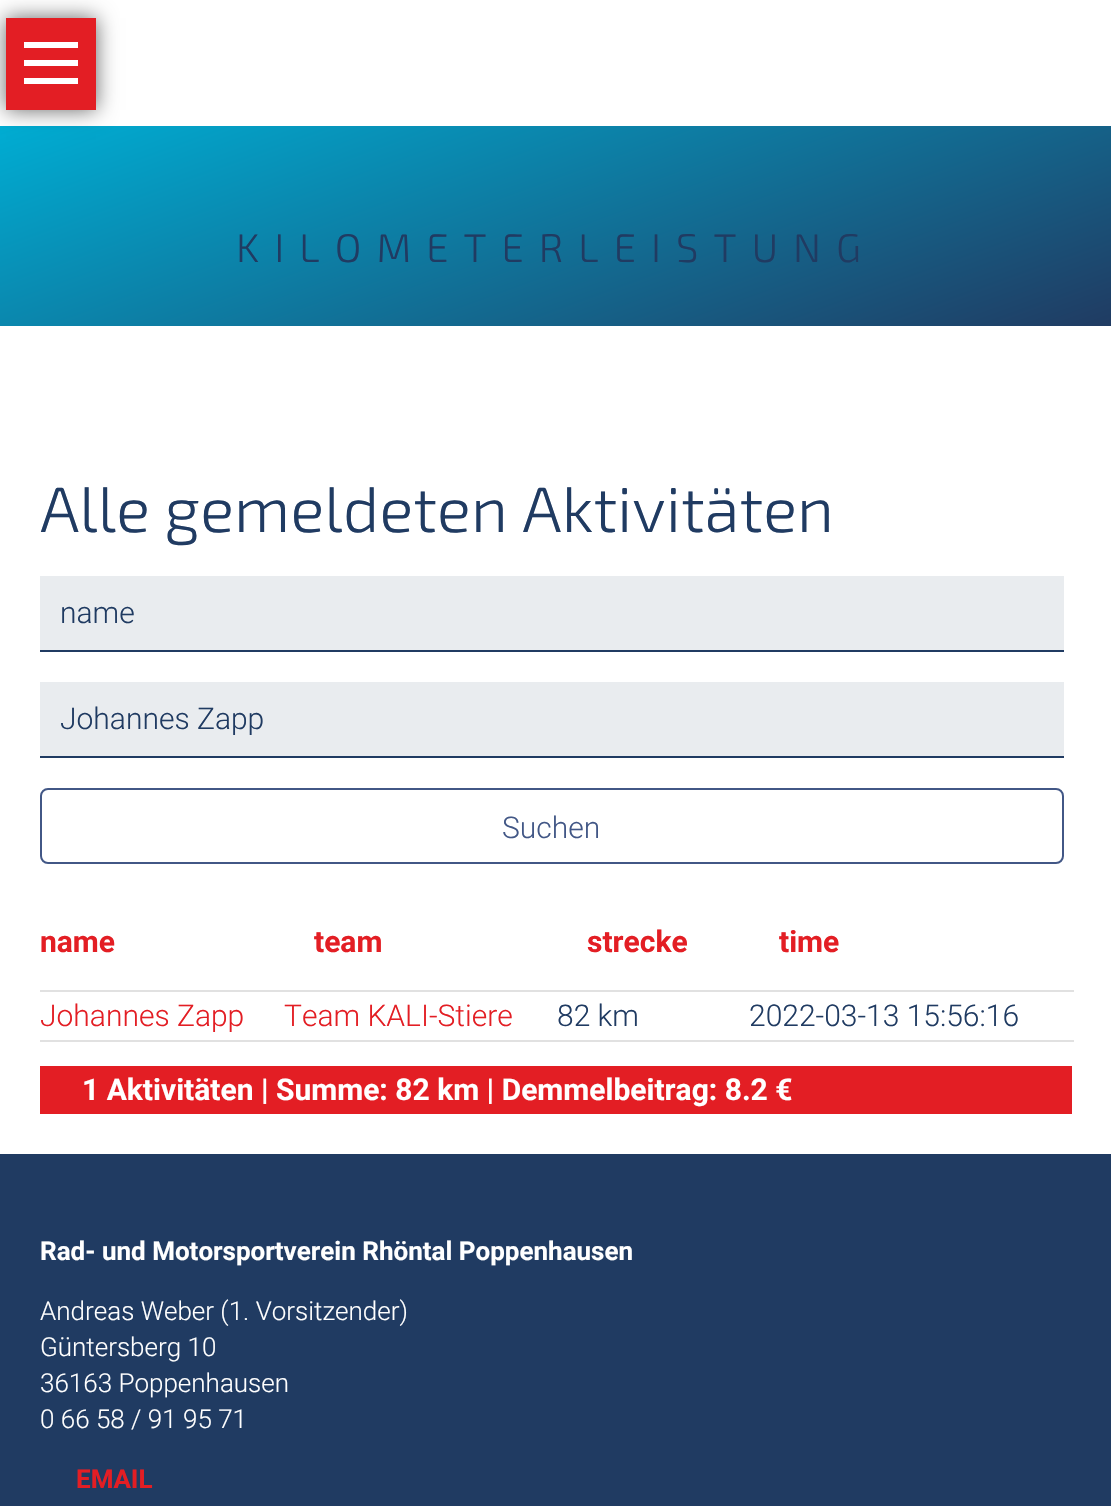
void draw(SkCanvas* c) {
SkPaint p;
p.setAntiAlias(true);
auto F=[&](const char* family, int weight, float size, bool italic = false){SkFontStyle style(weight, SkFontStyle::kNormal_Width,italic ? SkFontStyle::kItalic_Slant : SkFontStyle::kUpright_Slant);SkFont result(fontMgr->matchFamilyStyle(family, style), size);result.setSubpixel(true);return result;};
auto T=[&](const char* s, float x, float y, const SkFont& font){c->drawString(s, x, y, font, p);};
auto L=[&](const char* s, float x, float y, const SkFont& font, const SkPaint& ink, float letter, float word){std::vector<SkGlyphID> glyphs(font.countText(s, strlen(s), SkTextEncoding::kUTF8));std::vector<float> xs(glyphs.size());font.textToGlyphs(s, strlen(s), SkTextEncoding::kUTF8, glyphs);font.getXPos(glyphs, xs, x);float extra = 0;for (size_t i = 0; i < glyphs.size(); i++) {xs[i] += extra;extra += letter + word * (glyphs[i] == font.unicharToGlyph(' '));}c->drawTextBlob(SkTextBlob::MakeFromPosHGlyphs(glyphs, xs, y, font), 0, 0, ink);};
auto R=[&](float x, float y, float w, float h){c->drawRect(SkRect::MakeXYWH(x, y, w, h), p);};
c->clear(0xffffffff);
{
const SkColor colors[] = {0xff00add3,0xff203b62};
const float stops[] = {0,1};
const SkPoint ends[] = {{459,-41}, {653,493}};
p.setShader(SkGradientShader::MakeLinear(ends, colors, stops, 2, SkTileMode::kClamp));
p.setAlpha(255);
}
R(0,126,1111,200);
p.setShader(nullptr);
p.setColor(0x99000000);
p.setMaskFilter(SkMaskFilter::MakeBlur(kNormal_SkBlurStyle, 10));
c->drawRect(SkRect::MakeXYWH(6,18,90,92),p);
p.setMaskFilter(nullptr);
p.setColor(0xffe31e24);
R(6,18,90,92);
p.setColor(0xffffffff);
R(24,42,54,6);
R(24,60,54,6);
R(24,78,54,6);
auto f1 = F("Exo 2",300,40);
p.setColor(0xff203b62);
L("KILOMETERLEISTUNG",236,262,f1,p,15,0);
auto f2 = F("Exo 2",300,64);
T("Alle gemeldeten Aktivitäten",40,532,f2);
p.setColor(0xffe9ecef);
R(40,576,1024,74);
p.setColor(0xff203b62);
R(40,650,1024,2);
auto f3 = F("Roboto",300,30);
T("name",60,623,f3);
p.setColor(0xffe9ecef);
R(40,682,1024,74);
p.setColor(0xff203b62);
R(40,756,1024,2);
T("Johannes Zapp",60,729,f3);
p.setStroke(true);
p.setStrokeWidth(2);
p.setColor(0xff425786);
c->drawRoundRect(SkRect::MakeXYWH(41,789,1022,74),7,7,p);
p.setStroke(false);
T("Suchen",502,838,f3);
auto f4 = F("Roboto",700,30);
p.setColor(0xffe31e24);
T("name",40,952,f4);
T("team",314,952,f4);
T("strecke",587,952,f4);
p.setColor(0xffe1e1e1);
R(40,990,1034,2);
p.setColor(0xffe31e24);
T("time",779,952,f4);
T("Johannes Zapp",40,1026,f3);
T("Team KALI-Stiere",284,1026,f3);
p.setColor(0xff203b62);
T("82 km",557,1026,f3);
p.setColor(0xffe1e1e1);
R(40,1040,1034,2);
p.setColor(0xff203b62);
T("2022-03-13 15:56:16",749,1026,f3);
p.setColor(0xffe31e24);
R(40,1066,1032,48);
p.setColor(0xffffffff);
T("1 Aktivitäten | Summe: 82 km | Demmelbeitrag: 8.2 €",82,1100,f4);
p.setColor(0xff203b62);
R(0,1154,1111,352);
auto f5 = F("Roboto",700,26);
p.setColor(0xffffffff);
T("Rad- und Motorsportverein Rhöntal Poppenhausen",40,1260,f5);
auto f6 = F("Roboto",300,26);
T("Andreas Weber (1. Vorsitzender)",40,1320,f6);
T("Güntersberg 10",40,1356,f6);
T("36163 Poppenhausen",40,1392,f6);
T("0 66 58 / 91 95 71",40,1428,f6);
p.setColor(0xffe31e24);
T("EMAIL",76,1488,f5);
}
